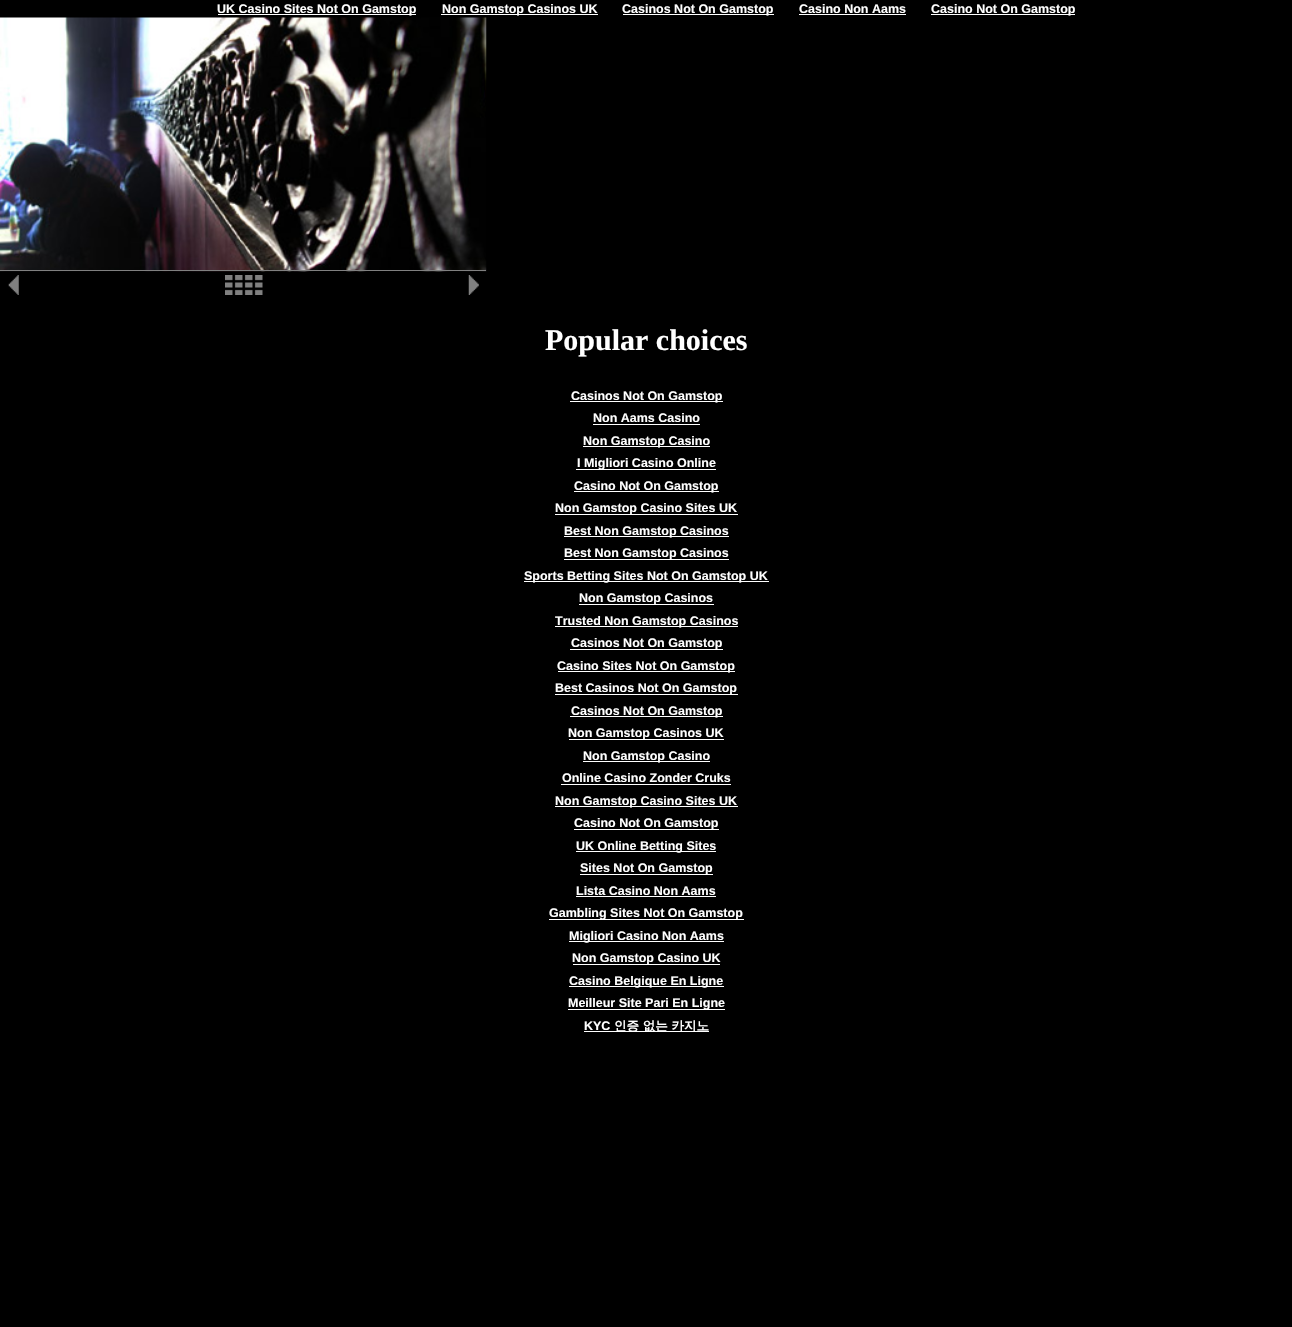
void draw(SkCanvas* c) {
SkPaint p;
p.setAntiAlias(true);
auto F=[&](const char* family, int weight, float size, bool italic = false){SkFontStyle style(weight, SkFontStyle::kNormal_Width,italic ? SkFontStyle::kItalic_Slant : SkFontStyle::kUpright_Slant);SkFont result(fontMgr->matchFamilyStyle(family, style), size);result.setSubpixel(true);return result;};
auto T=[&](const char* s, float x, float y, const SkFont& font){c->drawString(s, x, y, font, p);};
auto R=[&](float x, float y, float w, float h){c->drawRect(SkRect::MakeXYWH(x, y, w, h), p);};
auto I=[&](const char* path, float x, float y, float w, float h){auto image = SkImages::DeferredFromEncodedData(SkData::MakeFromFileName(path));c->drawImageRect(image, SkRect::MakeXYWH(x, y, w, h), SkSamplingOptions());};
c->clear(0xff000000);
p.setColor(0xffffffff);
R(218,14,198,1);
auto f1 = F("Liberation Sans",700,12.5);
T("UK Casino Sites Not On Gamstop",217,13,f1);
R(441,14,157,1);
T("Non Gamstop Casinos UK",442,13,f1);
R(623,14,151,1);
T("Casinos Not On Gamstop",622,13,f1);
T("Casino Non Aams",799,13,f1);
R(799,14,107,1);
R(931,14,144,1);
T("Casino Not On Gamstop",931,13,f1);
I("1.png",0,17,487,255);
p.setColor(0xff808080);
R(0,270,486,1);
I("2.png",8,275,11,20);
I("3.png",225,275,38,20);
I("4.png",468,275,11,20);
auto f2 = F("Liberation Serif",700,30);
p.setColor(0xffffffff);
T("Popular choices",545,350,f2);
R(570,401,153,1);
T("Casinos Not On Gamstop",571,400,f1);
T("Non Aams Casino",593,422,f1);
R(593,424,107,1);
R(583,446,127,1);
T("Non Gamstop Casino",583,445,f1);
R(576,469,140,1);
T("I Migliori Casino Online",577,467,f1);
R(574,491,145,1);
T("Casino Not On Gamstop",574,490,f1);
R(555,514,183,1);
T("Non Gamstop Casino Sites UK",555,512,f1);
R(564,536,165,1);
T("Best Non Gamstop Casinos",564,535,f1);
R(564,559,165,1);
T("Best Non Gamstop Casinos",564,557,f1);
R(524,581,245,1);
T("Sports Betting Sites Not On Gamstop UK",524,580,f1);
R(579,604,135,1);
T("Non Gamstop Casinos",579,602,f1);
R(555,626,183,1);
T("Trusted Non Gamstop Casinos",555,625,f1);
R(570,649,153,1);
T("Casinos Not On Gamstop",571,647,f1);
R(558,671,177,1);
T("Casino Sites Not On Gamstop",557,670,f1);
R(555,694,183,1);
T("Best Casinos Not On Gamstop",555,692,f1);
R(570,716,153,1);
T("Casinos Not On Gamstop",571,715,f1);
R(569,739,155,1);
T("Non Gamstop Casinos UK",568,737,f1);
R(583,761,127,1);
T("Non Gamstop Casino",583,760,f1);
T("Online Casino Zonder Cruks",562,782,f1);
R(561,784,170,1);
R(555,806,183,1);
T("Non Gamstop Casino Sites UK",555,805,f1);
R(574,829,145,1);
T("Casino Not On Gamstop",574,827,f1);
R(576,851,140,1);
T("UK Online Betting Sites",576,850,f1);
R(580,874,133,1);
T("Sites Not On Gamstop",580,872,f1);
T("Lista Casino Non Aams",576,895,f1);
R(576,896,140,1);
R(549,919,195,1);
T("Gambling Sites Not On Gamstop",549,917,f1);
R(569,941,155,1);
T("Migliori Casino Non Aams",569,940,f1);
R(573,964,147,1);
T("Non Gamstop Casino UK",572,962,f1);
R(569,986,155,1);
T("Casino Belgique En Ligne",569,985,f1);
R(568,1009,157,1);
T("Meilleur Site Pari En Ligne",568,1007,f1);
T("KYC",584,1030,f1);
R(584,1031,125,1);
auto f3 = F("WenQuanYi Zen Hei",700,12.5);
T("인증 없는 카지노",614,1030,f3);
}
